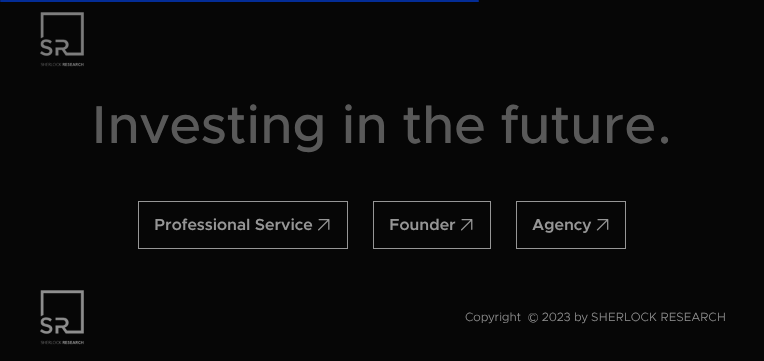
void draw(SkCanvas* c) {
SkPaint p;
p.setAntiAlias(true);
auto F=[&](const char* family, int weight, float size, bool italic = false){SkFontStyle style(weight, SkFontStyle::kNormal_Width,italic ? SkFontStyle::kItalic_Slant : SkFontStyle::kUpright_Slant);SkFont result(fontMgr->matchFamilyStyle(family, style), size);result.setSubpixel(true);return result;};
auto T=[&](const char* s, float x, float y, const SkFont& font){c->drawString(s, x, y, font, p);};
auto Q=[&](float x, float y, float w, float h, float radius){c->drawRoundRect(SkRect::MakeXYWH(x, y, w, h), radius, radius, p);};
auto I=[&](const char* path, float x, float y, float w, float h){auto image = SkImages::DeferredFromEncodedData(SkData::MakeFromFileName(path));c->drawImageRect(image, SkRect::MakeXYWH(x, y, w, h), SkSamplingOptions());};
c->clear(0xff060606);
p.setColor(0xff032c96);
Q(0,0,479,2,1);
I("1.png",40,12,44,55);
auto f1 = F("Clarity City",500,53.5);
p.setColor(0xff595959);
T("Investing in the future.",91,143,f1);
p.setStroke(true);
p.setStrokeWidth(1);
p.setColor(0xff969696);
c->drawRect(SkRect::MakeXYWH(138.5,201.5,209,47),p);
auto f2 = F("Clarity City",600,16);
p.setStroke(false);
T("Professional Service",154,230,f2);
I("2.png",318,219,12,12);
p.setStroke(true);
c->drawRect(SkRect::MakeXYWH(373.5,201.5,117,47),p);
p.setStroke(false);
T("Founder",389,230,f2);
I("3.png",461,219,12,12);
p.setStroke(true);
c->drawRect(SkRect::MakeXYWH(516.5,201.5,109,47),p);
p.setStroke(false);
T("Agency",532,230,f2);
I("4.png",596,219,13,12);
I("5.png",40,290,44,55);
auto f3 = F("Clarity City",300,12);
p.setColor(0xff8f8f8f);
T("Copyright  © 2023 by SHERLOCK RESEARCH",465,321,f3);
}
